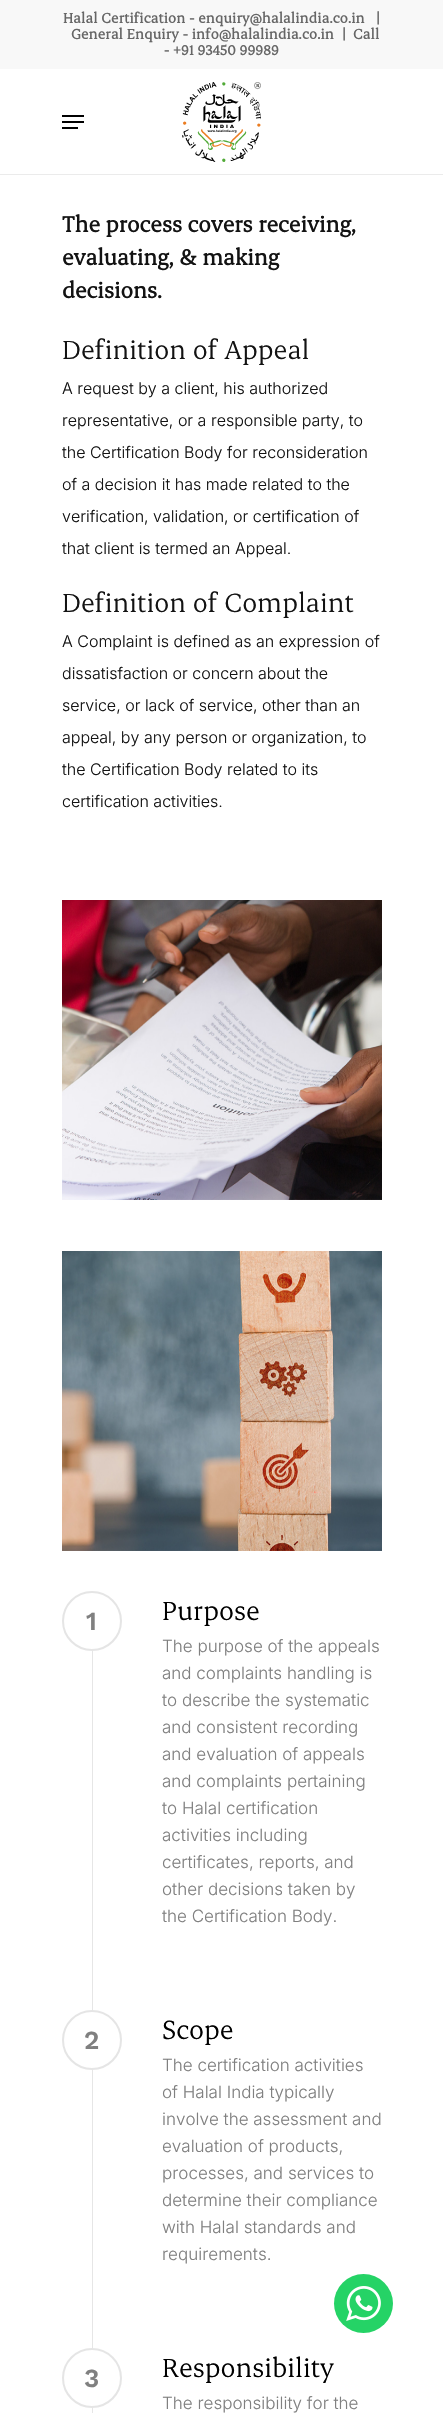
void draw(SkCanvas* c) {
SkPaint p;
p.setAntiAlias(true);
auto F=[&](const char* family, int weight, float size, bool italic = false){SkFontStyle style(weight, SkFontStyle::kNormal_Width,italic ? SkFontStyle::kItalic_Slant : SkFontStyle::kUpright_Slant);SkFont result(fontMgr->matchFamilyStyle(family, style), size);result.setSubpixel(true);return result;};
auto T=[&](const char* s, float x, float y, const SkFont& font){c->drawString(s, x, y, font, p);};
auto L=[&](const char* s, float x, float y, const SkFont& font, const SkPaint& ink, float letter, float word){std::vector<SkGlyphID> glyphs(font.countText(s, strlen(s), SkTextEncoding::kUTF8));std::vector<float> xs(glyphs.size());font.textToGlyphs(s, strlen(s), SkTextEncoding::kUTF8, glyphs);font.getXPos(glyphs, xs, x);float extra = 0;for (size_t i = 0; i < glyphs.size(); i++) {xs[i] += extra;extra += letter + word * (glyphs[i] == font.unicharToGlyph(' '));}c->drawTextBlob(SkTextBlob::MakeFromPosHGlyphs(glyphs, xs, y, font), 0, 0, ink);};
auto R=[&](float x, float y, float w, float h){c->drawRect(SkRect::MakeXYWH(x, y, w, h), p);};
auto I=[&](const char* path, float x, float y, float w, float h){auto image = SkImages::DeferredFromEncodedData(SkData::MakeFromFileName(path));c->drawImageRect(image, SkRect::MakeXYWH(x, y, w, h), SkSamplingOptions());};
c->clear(0xffffffff);
p.setColor(0xffebebeb);
R(0,174,443,1);
p.setColor(0xfff8f8f8);
R(0,0,443,69);
auto f1 = F("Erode",700,16);
p.setColor(0xff666666);
L("Halal Certification - enquiry@halalindia.co.in",63,23,f1,p,.2,0);
L("|",376,23,f1,p,.2,0);
L("General Enquiry - info@halalindia.co.in",71,39,f1,p,.2,0);
L("|",342,39,f1,p,.2,0);
L("Call",353,39,f1,p,.2,0);
L("- +91 93450 99989",164,55,f1,p,.2,0);
p.setColor(0xff000000);
R(62,115,22,2);
R(62,127,16,2);
R(62,121,22,2);
I("1.png",182,82,79,80);
auto f2 = F("Erode",700,25);
p.setColor(0xff131313);
T("The process covers receiving,",62,232,f2);
T("evaluating, & making",62,265,f2);
T("decisions.",62,298,f2);
auto f3 = F("Erode",400,30);
T("Definition of Appeal",62,359,f3);
auto f4 = F("Inter",300,16);
T("A request by a client, his authorized",62,394,f4);
T("representative, or a responsible party, to",62,426,f4);
T("the Certification Body for reconsideration",62,458,f4);
T("of a decision it has made related to the",62,490,f4);
T("verification, validation, or certification of",62,522,f4);
T("that client is termed an Appeal.",62,554,f4);
T("Definition of Complaint",62,612,f3);
T("A Complaint is defined as an expression of",62,647,f4);
T("dissatisfaction or concern about the",62,679,f4);
T("service, or lack of service, other than an",62,711,f4);
T("appeal, by any person or organization, to",62,743,f4);
T("the Certification Body related to its",62,775,f4);
T("certification activities.",62,807,f4);
I("2.png",62,900,320,300);
I("3.png",62,1251,320,300);
p.setColor(0xffe6e6e6);
R(92,1650,1,763);
p.setColor(0xffffffff);
c->drawCircle(92,1621,29,p);
p.setStroke(true);
p.setStrokeWidth(2);
p.setColor(0xffe5e5e5);
c->drawCircle(92,1621,29,p);
auto f5 = F("Work Sans",600,26);
p.setStroke(false);
p.setColor(0xff808080);
T("1",86,1630,f5);
p.setColor(0xff000000);
T("Purpose",162,1620,f3);
auto f6 = F("Inter",300,17);
p.setColor(0xff808080);
T("The purpose of the appeals",162,1652,f6);
T("and complaints handling is",162,1679,f6);
T("to describe the systematic",162,1706,f6);
T("and consistent recording",162,1733,f6);
T("and evaluation of appeals",162,1760,f6);
T("and complaints pertaining",162,1787,f6);
T("to Halal certification",162,1814,f6);
T("activities including",162,1841,f6);
T("certificates, reports, and",162,1868,f6);
T("other decisions taken by",162,1895,f6);
T("the Certification Body.",162,1922,f6);
p.setColor(0xffffffff);
c->drawCircle(92,2040,29,p);
p.setStroke(true);
p.setColor(0xffe5e5e5);
c->drawCircle(92,2040,29,p);
p.setStroke(false);
p.setColor(0xff808080);
T("2",84,2049,f5);
p.setColor(0xff000000);
T("Scope",162,2039,f3);
p.setColor(0xff808080);
T("The certification activities",162,2071,f6);
T("of Halal India typically",162,2098,f6);
T("involve the assessment and",162,2125,f6);
T("evaluation of products,",162,2152,f6);
T("processes, and services to",162,2179,f6);
T("determine their compliance",162,2206,f6);
T("with Halal standards and",162,2233,f6);
T("requirements.",162,2260,f6);
p.setColor(0xffffffff);
c->drawCircle(92,2378,29,p);
p.setStroke(true);
p.setColor(0xffe5e5e5);
c->drawCircle(92,2378,29,p);
p.setStroke(false);
p.setColor(0xff808080);
T("3",84,2387,f5);
p.setColor(0xff000000);
T("Responsibility",162,2377,f3);
p.setColor(0xff808080);
T("The responsibility for the",162,2409,f6);
p.setColor(0xff25d366);
c->drawCircle(363.5,2303.5,29.5,p);
I("4.png",346,2286,35,35);
}
